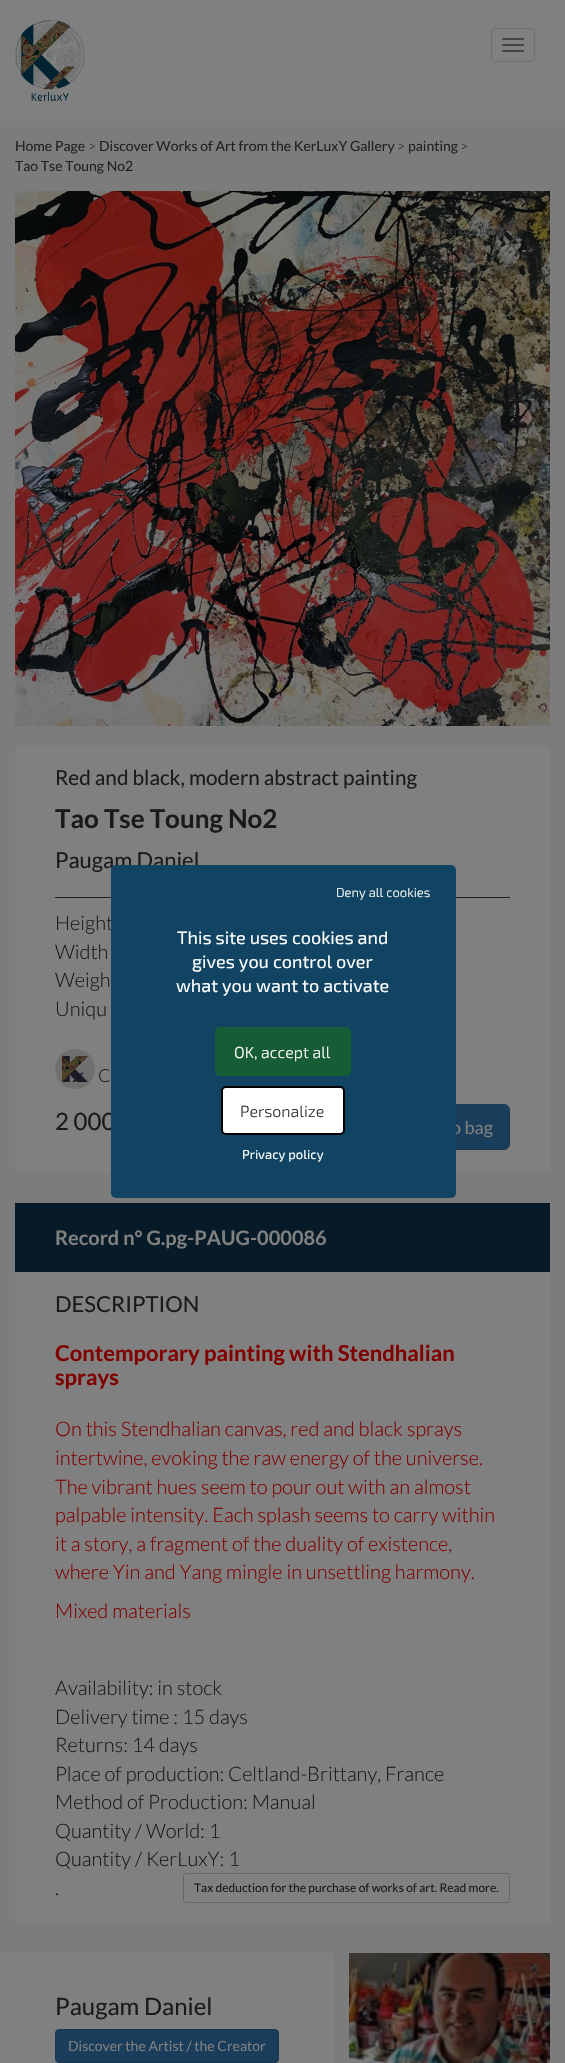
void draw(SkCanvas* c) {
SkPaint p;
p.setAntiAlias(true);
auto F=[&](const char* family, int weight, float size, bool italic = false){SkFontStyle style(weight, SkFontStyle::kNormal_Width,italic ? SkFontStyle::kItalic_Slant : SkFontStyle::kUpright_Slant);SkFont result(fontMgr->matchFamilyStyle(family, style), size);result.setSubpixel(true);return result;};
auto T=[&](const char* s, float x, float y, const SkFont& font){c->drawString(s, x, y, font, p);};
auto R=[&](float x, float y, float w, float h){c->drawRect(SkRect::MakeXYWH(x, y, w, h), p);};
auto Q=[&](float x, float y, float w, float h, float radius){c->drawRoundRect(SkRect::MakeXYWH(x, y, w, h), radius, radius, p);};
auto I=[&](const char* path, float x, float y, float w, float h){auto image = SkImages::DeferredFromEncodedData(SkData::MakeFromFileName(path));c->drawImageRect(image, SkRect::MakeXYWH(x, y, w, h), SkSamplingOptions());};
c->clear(0xff808080);
I("1.png",15,20,70,81);
p.setStroke(true);
p.setStrokeWidth(1);
p.setColor(0xff6f6f6f);
c->drawRoundRect(SkRect::MakeXYWH(491.5,28.5,43,33),3.5,3.5,p);
p.setStroke(false);
p.setColor(0xff444444);
Q(502,38,22,2,1);
Q(502,44,22,2,1);
Q(502,50,22,2,1);
p.setColor(0xff7c7c7c);
R(0,121,565,1942);
auto f1 = F("Lato",400,14);
p.setColor(0xff212121);
T("Home Page",15,151,f1);
auto f2 = F("Lato",300,14);
p.setColor(0xff1a1a1a);
T(">",88,151,f2);
p.setColor(0xff212121);
T("Discover Works of Art from the KerLuxY Gallery",99,151,f1);
p.setColor(0xff1a1a1a);
T(">",397,151,f2);
p.setColor(0xff212121);
T("painting",408,151,f1);
p.setColor(0xff1a1a1a);
T(">",460,151,f2);
p.setColor(0xff212121);
T("Tao Tse Toung No2",15,171,f1);
I("2.png",15,191,535,535);
p.setColor(0xff808080);
R(15,746,535,427);
auto f3 = F("Lato",400,20.75);
p.setColor(0xff1a1a1a);
T("Red and black, modern abstract painting",55,785,f3);
auto f4 = F("Lato",700,26);
T("Tao Tse Toung No2",55,828,f4);
auto f5 = F("Lato",400,22);
T("Paugam Daniel",55,868,f5);
p.setColor(0xff212121);
R(55,897,455,1);
auto f6 = F("Lato",300,20);
p.setColor(0xff1a1a1a);
T("Height",55,930,f6);
T("Width",55,959,f6);
T("Weigh",55,987,f6);
T("Uniqu",55,1016,f6);
p.setColor(0xff6f6f6f);
c->drawCircle(75,1069,20,p);
I("3.png",62,1056,26,26);
auto f7 = F("Lato",300,18);
p.setColor(0xff1a1a1a);
T("C",98,1082,f7);
auto f8 = F("Lato",400,24);
T("2 000",55,1130,f8);
p.setColor(0xff1a3d5c);
c->drawRoundRect(SkRect::MakeXYWH(392.5,1104.5,117,45),5.5,5.5,p);
p.setStroke(true);
p.setColor(0xff173752);
c->drawRoundRect(SkRect::MakeXYWH(392.5,1104.5,117,45),5.5,5.5,p);
auto f9 = F("Lato",400,18);
p.setStroke(false);
p.setColor(0xff808080);
T("o bag",451,1134,f9);
p.setColor(0xff061b27);
R(15,1203,535,69);
auto f10 = F("Lato",700,20);
p.setColor(0xff808080);
T("Record n° G.pg-PAUG-000086",55,1245,f10);
R(15,1272,535,651);
p.setColor(0xff1a1a1a);
T("DESCRIPTION",55,1312,f5);
auto f11 = F("Lato",700,22);
p.setColor(0xff800000);
T("Contemporary painting with Stendhalian",55,1361,f11);
T("sprays",55,1385,f11);
T("On this Stendhalian canvas, red and black sprays",55,1436,f6);
T("intertwine, evoking the raw energy of the universe.",55,1465,f6);
T("The vibrant hues seem to pour out with an almost",55,1494,f6);
T("palpable intensity. Each splash seems to carry within",55,1522,f6);
T("it a story, a fragment of the duality of existence,",55,1551,f6);
T("where Yin and Yang mingle in unsettling harmony.",55,1579,f6);
T("Mixed materials",55,1618,f6);
p.setColor(0xff1a1a1a);
T("Availability: in stock",55,1695,f6);
T("Delivery time : 15 days",55,1724,f6);
T("Returns: 14 days",55,1752,f6);
T("Place of production: Celtland-Brittany, France",55,1781,f6);
T("Method of Production: Manual",55,1809,f6);
T("Quantity / World: 1",55,1838,f6);
T("Quantity / KerLuxY: 1",55,1866,f6);
T(".",55,1895,f6);
p.setStroke(true);
p.setColor(0xff666666);
c->drawRoundRect(SkRect::MakeXYWH(183.5,1873.5,326,29),2.5,2.5,p);
auto f12 = F("Lato",400,12);
p.setStroke(false);
p.setColor(0xff1a1a1a);
T("Tax deduction for the purchase of works of art. Read more.",194,1892,f12);
p.setColor(0xff808080);
R(0,1953,334,110);
p.setColor(0xff1a1a1a);
T("Paugam Daniel",55,2015,f8);
p.setColor(0xff1a3d5c);
c->drawRoundRect(SkRect::MakeXYWH(55.5,2029.5,223,33),3.5,3.5,p);
p.setStroke(true);
p.setColor(0xff173752);
c->drawRoundRect(SkRect::MakeXYWH(55.5,2029.5,223,33),3.5,3.5,p);
p.setStroke(false);
p.setColor(0xff808080);
T("Discover the Artist / the Creator",68,2051,f1);
I("4.png",349,1953,201,110);
p.setColor(0xff114463);
Q(111,865,345,333,5);
auto f13 = F("Exo 2",300,13);
p.setColor(0xffffffff);
T("Deny all cookies",336,897,f13);
auto f14 = F("Exo 2",400,18);
T("This site uses cookies and",177,944,f14);
T("gives you control over",192,968,f14);
T("what you want to activate",176,992,f14);
p.setColor(0xff165d35);
Q(215,1027,136,49,5);
auto f15 = F("Exo 2",300,16);
p.setColor(0xffffffff);
T("OK, accept all",234,1058,f15);
c->drawRoundRect(SkRect::MakeXYWH(222,1087,122,47),4,4,p);
p.setStroke(true);
p.setStrokeWidth(2);
p.setColor(0xff000000);
c->drawRoundRect(SkRect::MakeXYWH(222,1087,122,47),4,4,p);
p.setStroke(false);
p.setColor(0xff333333);
T("Personalize",240,1117,f15);
auto f16 = F("Exo 2",400,13);
p.setColor(0xffffffff);
T("Privacy policy",242,1159,f16);
}
